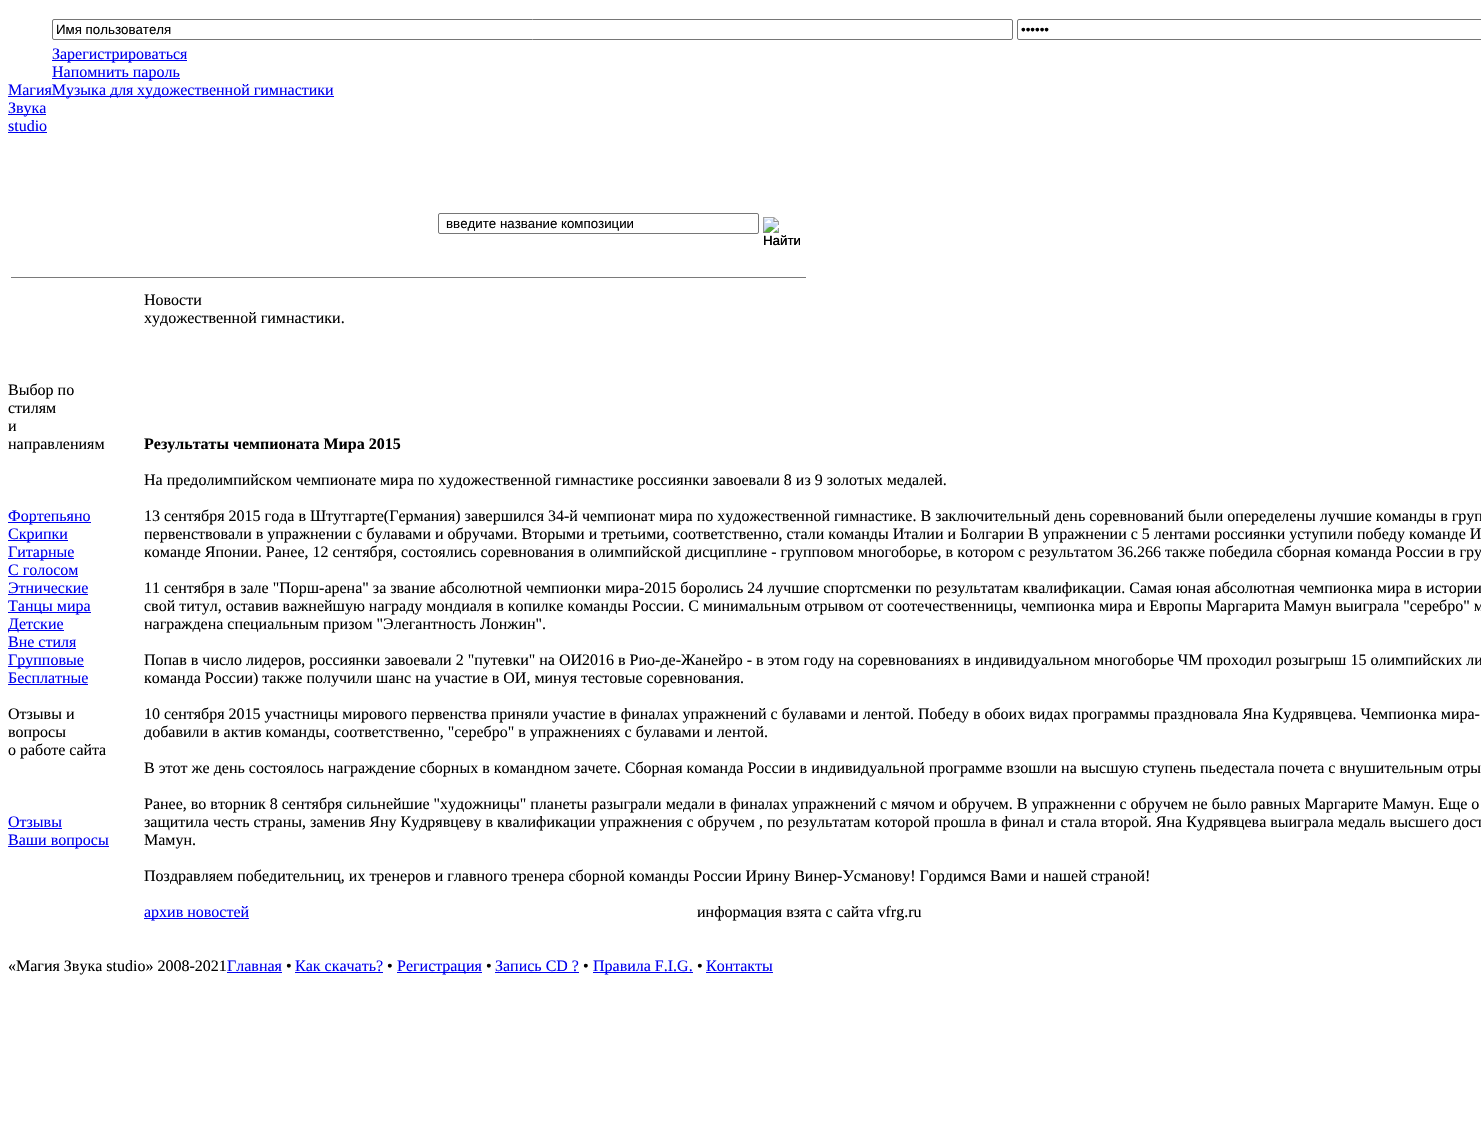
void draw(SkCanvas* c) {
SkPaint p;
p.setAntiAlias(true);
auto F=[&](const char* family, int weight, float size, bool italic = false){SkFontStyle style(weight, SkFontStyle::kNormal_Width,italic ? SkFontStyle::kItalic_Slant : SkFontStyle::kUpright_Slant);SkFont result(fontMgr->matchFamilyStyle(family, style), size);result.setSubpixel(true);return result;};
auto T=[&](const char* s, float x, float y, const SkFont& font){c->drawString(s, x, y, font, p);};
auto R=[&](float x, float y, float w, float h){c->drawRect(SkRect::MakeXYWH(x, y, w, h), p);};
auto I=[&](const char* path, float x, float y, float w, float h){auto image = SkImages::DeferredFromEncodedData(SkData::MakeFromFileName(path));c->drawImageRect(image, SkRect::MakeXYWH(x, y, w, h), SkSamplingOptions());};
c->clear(0xffffffff);
p.setStroke(true);
p.setStrokeWidth(1);
p.setColor(0xff767676);
c->drawRoundRect(SkRect::MakeXYWH(52.5,19.5,960,20),1.5,1.5,p);
auto f1 = F("Liberation Sans",400,13.3);
p.setStroke(false);
p.setColor(0xff000000);
T("Имя пользователя",56,34,f1);
p.setStroke(true);
p.setColor(0xff767676);
c->drawRoundRect(SkRect::MakeXYWH(1017.5,19.5,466,20),1.5,1.5,p);
p.setStroke(false);
p.setColor(0xff000000);
T("••••••",1021,34,f1);
p.setColor(0xff0000ee);
R(52,60,135,1);
auto f2 = F("Liberation Serif",400,16);
T("Зарегистрироваться",52,59,f2);
R(52,78,128,1);
T("Напомнить пароль",52,77,f2);
R(133,96,201,1);
T("художественной гимнастики",137,95,f2);
R(8,96,125,1);
T("МагияМузыка для",8,95,f2);
R(8,114,38,1);
T("Звука",8,113,f2);
T("studio",8,131,f2);
R(8,132,39,1);
p.setStroke(true);
p.setColor(0xff767676);
c->drawRoundRect(SkRect::MakeXYWH(438.5,213.5,320,20),1.5,1.5,p);
p.setStroke(false);
p.setColor(0xff000000);
T("введите название композиции",446,228,f1);
I("1.png",763,217,37,28);
T("Найти",763,245,f1);
p.setColor(0xff7a7a7a);
R(11,277,795,1);
p.setColor(0xff000000);
T("Выбор по",8,395,f2);
T("стилям",8,413,f2);
T("и",8,431,f2);
T("направлениям",8,449,f2);
p.setColor(0xff0000ee);
R(8,522,83,1);
T("Фортепьяно",8,521,f2);
R(8,540,60,1);
T("Скрипки",8,539,f2);
R(8,558,66,1);
T("Гитарные",8,557,f2);
T("С голосом",8,575,f2);
R(8,576,70,1);
T("Этнические",8,593,f2);
R(8,594,80,1);
R(8,612,83,1);
T("Танцы мира",8,611,f2);
R(8,630,56,1);
T("Детские",8,629,f2);
T("Вне стиля",8,647,f2);
R(8,648,68,1);
R(8,666,76,1);
T("Групповые",8,665,f2);
T("Бесплатные",8,683,f2);
R(8,684,80,1);
p.setColor(0xff000000);
T("Отзывы и",8,719,f2);
T("вопросы",8,737,f2);
T("о работе сайта",8,755,f2);
p.setColor(0xff0000ee);
T("Отзывы",8,827,f2);
R(8,828,54,1);
R(8,846,101,1);
T("Ваши вопросы",8,845,f2);
p.setColor(0xff000000);
T("Новости",144,305,f2);
T("художественной гимнастики.",144,323,f2);
auto f3 = F("Liberation Serif",700,16);
T("Результаты чемпионата Мира 2015",144,449,f3);
T("На предолимпийском чемпионате мира по художественной гимнастике россиянки завоевали 8 из 9 золотых медалей.",144,485,f2);
T("13 сентября 2015 года в Штутгарте(Германия) завершился 34-й чемпионат мира по художественной гимнастике. В заключительный день соревнований были опеределены лучшие команды в груп",144,521,f2);
T("первенствовали в упражнении с булавами и обручами. Вторыми и третьими, соответственно, стали команды Италии и Болгарии В упражнении с 5 лентами россиянки уступили победу команде И",144,539,f2);
T("команде Японии. Ранее, 12 сентября, состоялись соревнования в олимпийской дисциплине - групповом многоборье, в котором с результатом 36.266 также победила сборная команда России в гру",144,557,f2);
T("11 сентября в зале \"Порш-арена\" за звание абсолютной чемпионки мира-2015 боролись 24 лучшие спортсменки по результатам квалификации. Самая юная абсолютная чемпионка мира в истории",144,593,f2);
T("свой титул, оставив важнейшую награду мондиаля в копилке команды России. С минимальным отрывом от соотечественницы, чемпионка мира и Европы Маргарита Мамун выиграла \"серебро\" м",144,611,f2);
T("награждена специальным призом \"Элегантность Лонжин\".",144,629,f2);
T("Попав в число лидеров, россиянки завоевали 2 \"путевки\" на ОИ2016 в Рио-де-Жанейро - в этом году на соревнованиях в индивидуальном многоборье ЧМ проходил розыгрыш 15 олимпийских ли",144,665,f2);
T("команда России) также получили шанс на участие в ОИ, минуя тестовые соревнования.",144,683,f2);
T("10 сентября 2015 участницы мирового первенства приняли участие в финалах упражнений с булавами и лентой. Победу в обоих видах программы праздновала Яна Кудрявцева. Чемпионка мира-",144,719,f2);
T("добавили в актив команды, соответственно, \"серебро\" в упражнениях с булавами и лентой.",144,737,f2);
T("В этот же день состоялось награждение сборных в командном зачете. Сборная команда России в индивидуальной программе взошли на высшую ступень пьедестала почета с внушительным отры",144,773,f2);
T("Ранее, во вторник 8 сентября сильнейшие \"художницы\" планеты разыграли медали в финалах упражнений с мячом и обручем. В упражненни с обручем не было равных Маргарите Мамун. Еще о",144,809,f2);
T("защитила честь страны, заменив Яну Кудрявцеву в квалификации упражнения с обручем , по результатам которой прошла в финал и стала второй. Яна Кудрявцева выиграла медаль высшего дост",144,827,f2);
T("Мамун.",144,845,f2);
T("Поздравляем победительниц, их тренеров и главного тренера сборной команды России Ирину Винер-Усманову! Гордимся Вами и нашей страной!",144,881,f2);
p.setColor(0xff0000ee);
R(144,918,105,1);
T("архив новостей",144,917,f2);
p.setColor(0xff000000);
T("информация взята с сайта vfrg.ru",697,917,f2);
T("«Магия Звука studio» 2008-2021",8,971,f2);
p.setColor(0xff0000ee);
T("Главная",227,971,f2);
R(227,972,55,1);
p.setColor(0xff000000);
T("•",286,971,f2);
p.setColor(0xff0000ee);
T("Как скачать?",295,971,f2);
R(295,972,88,1);
p.setColor(0xff000000);
T("•",387,971,f2);
p.setColor(0xff0000ee);
R(397,972,85,1);
T("Регистрация",397,971,f2);
p.setColor(0xff000000);
T("•",486,971,f2);
p.setColor(0xff0000ee);
T("Запись CD ?",495,971,f2);
R(495,972,84,1);
p.setColor(0xff000000);
T("•",583,971,f2);
p.setColor(0xff0000ee);
R(593,972,100,1);
T("Правила F.I.G.",593,971,f2);
p.setColor(0xff000000);
T("•",697,971,f2);
p.setColor(0xff0000ee);
T("Контакты",706,971,f2);
R(706,972,67,1);
}
